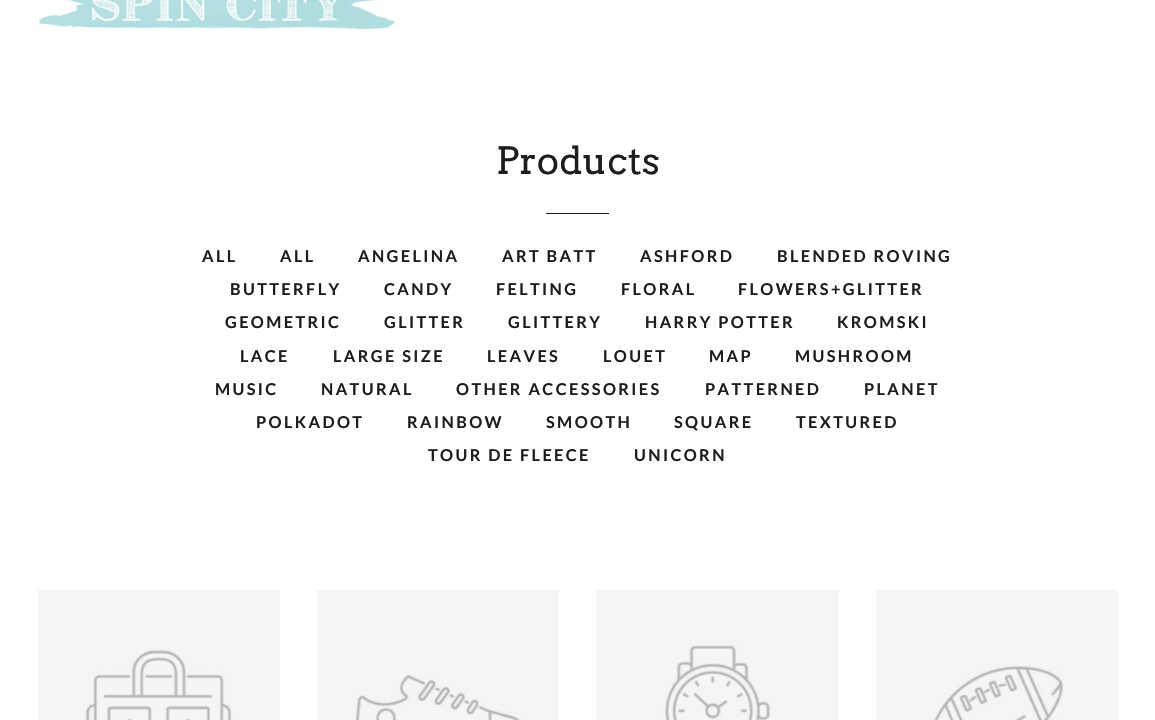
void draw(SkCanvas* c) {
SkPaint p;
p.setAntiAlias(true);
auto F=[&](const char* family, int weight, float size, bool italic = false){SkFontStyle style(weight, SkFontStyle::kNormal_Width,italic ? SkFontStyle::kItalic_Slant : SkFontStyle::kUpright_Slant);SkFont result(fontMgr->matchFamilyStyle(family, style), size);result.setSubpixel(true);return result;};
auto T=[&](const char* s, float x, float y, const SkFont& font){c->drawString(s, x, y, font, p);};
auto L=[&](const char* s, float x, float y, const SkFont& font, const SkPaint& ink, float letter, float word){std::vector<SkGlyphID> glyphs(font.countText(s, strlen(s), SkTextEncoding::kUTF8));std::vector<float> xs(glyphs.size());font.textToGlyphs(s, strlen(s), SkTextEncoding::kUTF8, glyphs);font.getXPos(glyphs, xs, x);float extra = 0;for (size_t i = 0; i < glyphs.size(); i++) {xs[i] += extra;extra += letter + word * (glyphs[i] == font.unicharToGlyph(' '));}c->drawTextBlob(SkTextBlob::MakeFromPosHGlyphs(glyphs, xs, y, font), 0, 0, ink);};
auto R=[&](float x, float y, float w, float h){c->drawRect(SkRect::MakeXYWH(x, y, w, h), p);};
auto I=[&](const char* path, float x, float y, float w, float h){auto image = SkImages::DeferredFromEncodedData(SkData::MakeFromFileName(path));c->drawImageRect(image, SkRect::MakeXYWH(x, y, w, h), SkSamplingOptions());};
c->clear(0xffffffff);
I("1.png",39,0,356,30);
auto f1 = F("Arvo",400,37.5);
p.setColor(0xff1c1d1d);
T("Products",496,174,f1);
R(546,213,63,1);
auto f2 = F("Lato",700,16.25);
L("ALL",202,262,f2,p,2.4,0);
L("ALL",280,262,f2,p,2.4,0);
L("ANGELINA",358,262,f2,p,2.4,0);
L("ART BATT",502,262,f2,p,2.4,0);
L("ASHFORD",640,262,f2,p,2.4,0);
L("BLENDED ROVING",777,262,f2,p,2.4,0);
L("BUTTERFLY",230,295,f2,p,2.4,0);
L("CANDY",384,295,f2,p,2.4,0);
L("FELTING",496,295,f2,p,2.4,0);
L("FLORAL",621,295,f2,p,2.4,0);
L("FLOWERS+GLITTER",738,295,f2,p,2.4,0);
L("GEOMETRIC",225,328,f2,p,2.4,0);
L("GLITTER",384,328,f2,p,2.4,0);
L("GLITTERY",508,328,f2,p,2.4,0);
L("HARRY POTTER",645,328,f2,p,2.4,0);
L("KROMSKI",837,328,f2,p,2.4,0);
L("LACE",240,362,f2,p,2.4,0);
L("LARGE SIZE",333,362,f2,p,2.4,0);
L("LEAVES",487,362,f2,p,2.4,0);
L("LOUET",603,362,f2,p,2.4,0);
L("MAP",709,362,f2,p,2.4,0);
L("MUSHROOM",795,362,f2,p,2.4,0);
L("MUSIC",215,395,f2,p,2.4,0);
L("NATURAL",321,395,f2,p,2.4,0);
L("OTHER ACCESSORIES",456,395,f2,p,2.4,0);
L("PATTERNED",705,395,f2,p,2.4,0);
L("PLANET",864,395,f2,p,2.4,0);
L("POLKADOT",256,428,f2,p,2.4,0);
L("RAINBOW",407,428,f2,p,2.4,0);
L("SMOOTH",546,428,f2,p,2.4,0);
L("SQUARE",674,428,f2,p,2.4,0);
L("TEXTURED",796,428,f2,p,2.4,0);
L("TOUR DE FLEECE",428,461,f2,p,2.4,0);
L("UNICORN",634,461,f2,p,2.4,0);
I("2.png",38,590,242,130);
I("3.png",317,590,242,130);
I("4.png",596,590,243,130);
I("5.png",876,590,242,130);
}
